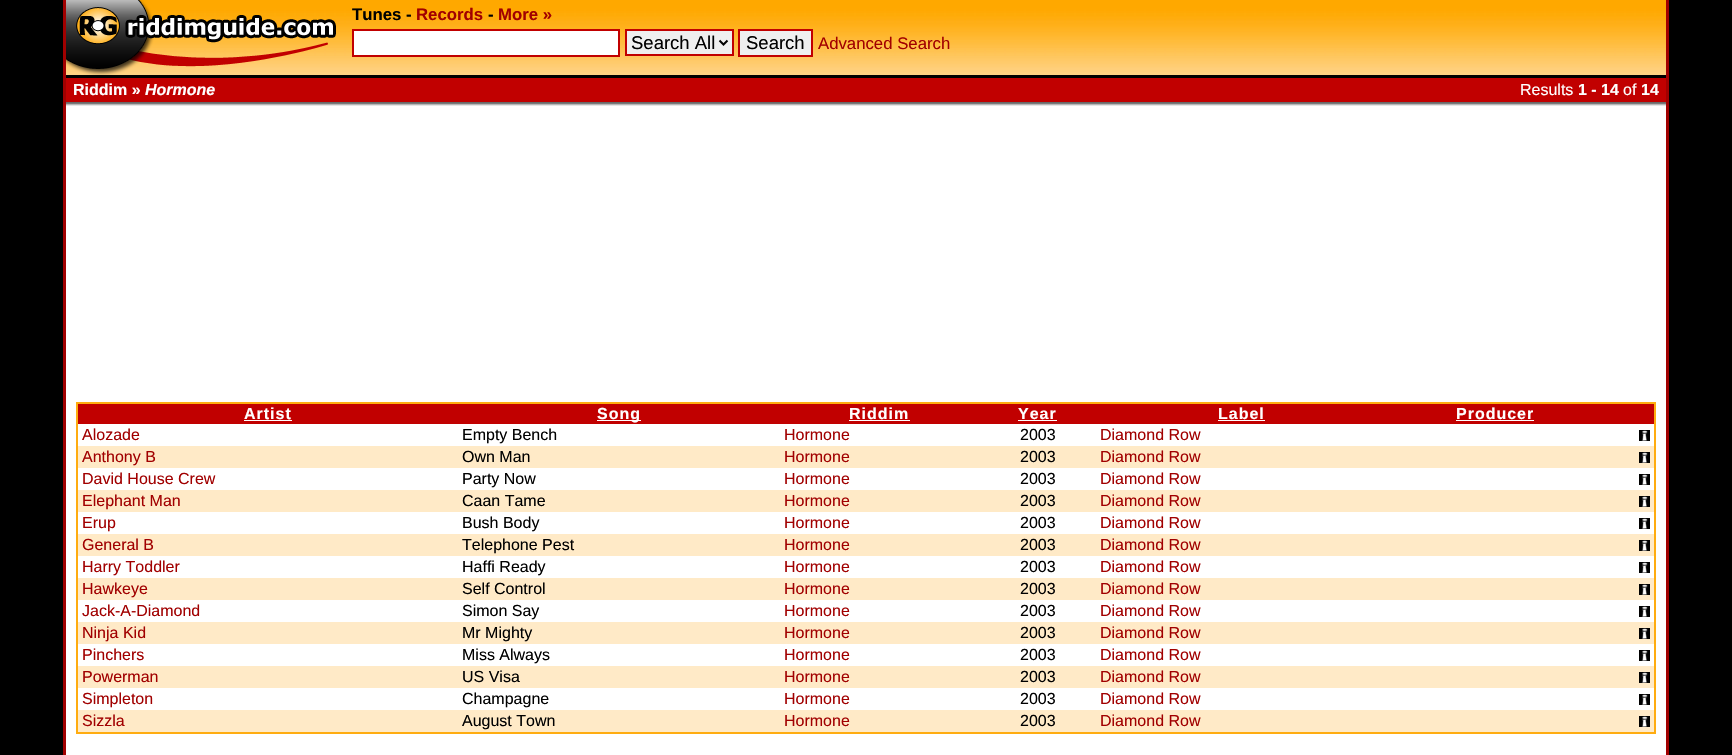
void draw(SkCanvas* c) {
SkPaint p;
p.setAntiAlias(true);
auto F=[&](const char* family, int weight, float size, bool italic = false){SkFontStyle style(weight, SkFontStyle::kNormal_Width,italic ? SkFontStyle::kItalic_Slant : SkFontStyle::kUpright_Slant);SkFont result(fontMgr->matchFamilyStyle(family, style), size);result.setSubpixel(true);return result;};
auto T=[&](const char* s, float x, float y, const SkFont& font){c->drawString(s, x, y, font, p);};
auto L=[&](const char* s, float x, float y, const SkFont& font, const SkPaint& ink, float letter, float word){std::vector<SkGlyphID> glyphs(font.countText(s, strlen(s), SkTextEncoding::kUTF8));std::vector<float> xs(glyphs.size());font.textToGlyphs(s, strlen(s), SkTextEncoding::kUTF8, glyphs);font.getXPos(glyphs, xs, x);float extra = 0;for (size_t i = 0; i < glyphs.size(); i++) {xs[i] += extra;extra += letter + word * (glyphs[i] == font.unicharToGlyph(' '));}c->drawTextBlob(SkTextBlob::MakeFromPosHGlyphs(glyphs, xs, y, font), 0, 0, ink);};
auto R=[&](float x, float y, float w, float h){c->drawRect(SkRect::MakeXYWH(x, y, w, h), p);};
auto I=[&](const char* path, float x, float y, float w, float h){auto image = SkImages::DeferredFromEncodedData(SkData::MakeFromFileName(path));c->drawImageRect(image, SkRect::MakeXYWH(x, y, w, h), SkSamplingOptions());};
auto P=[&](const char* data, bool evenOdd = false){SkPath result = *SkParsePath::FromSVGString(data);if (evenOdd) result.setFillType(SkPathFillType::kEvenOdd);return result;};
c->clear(0xff000000);
p.setColor(0xffffffff);
R(66,106,1600,649);
p.setColor(0xffa10000);
R(1666,0,3,755);
R(63,0,3,755);
I("1.png",66,0,1600,75);
I("2.png",66,0,270,75);
auto f1 = F("Liberation Sans",700,16.75);
p.setColor(0xff000000);
T("Tunes -",352,20,f1);
p.setColor(0xffa10000);
T("Records",416,20,f1);
p.setColor(0xff000000);
T("-",488,20,f1);
p.setColor(0xffa10000);
T("More »",498,20,f1);
p.setColor(0xffffffff);
c->drawRect(SkRect::MakeXYWH(353,30,266,26),p);
p.setStroke(true);
p.setStrokeWidth(2);
p.setColor(0xffc10000);
c->drawRect(SkRect::MakeXYWH(353,30,266,26),p);
p.setStroke(false);
p.setColor(0xffefefef);
c->drawRect(SkRect::MakeXYWH(626,30,107,25),p);
p.setStroke(true);
p.setColor(0xffc10000);
c->drawRect(SkRect::MakeXYWH(626,30,107,25),p);
p.setColor(0xff000000);
c->drawPath(P("M719.5 40.5l4 4l4-4"),p);
auto f2 = F("Liberation Sans",400,18.5);
p.setStroke(false);
T("Search All",631,49,f2);
p.setColor(0xffefefef);
c->drawRect(SkRect::MakeXYWH(739,30,73,26),p);
p.setStroke(true);
p.setColor(0xffc10000);
c->drawRect(SkRect::MakeXYWH(739,30,73,26),p);
p.setStroke(false);
p.setColor(0xff000000);
T("Search",746,49,f2);
auto f3 = F("Liberation Sans",400,16.75);
p.setColor(0xffa10000);
T("Advanced Search",818,49,f3);
p.setColor(0xffc10000);
R(66,78,1600,24);
auto f4 = F("Liberation Sans",700,16);
p.setColor(0xffffffff);
T("Riddim »",73,95,f4);
auto f5 = F("Liberation Sans",700,16,true);
T("Hormone",145,95,f5);
auto f6 = F("Liberation Sans",400,16);
T("Results",1520,95,f6);
T("1 - 14",1578,95,f4);
T("of",1623,95,f6);
T("14",1641,95,f4);
I("3.png",66,102,1600,4);
p.setStroke(true);
p.setColor(0xffffac10);
c->drawRect(SkRect::MakeXYWH(77,403,1578,330),p);
p.setStroke(false);
p.setColor(0xffc10000);
R(78,404,1576,20);
p.setColor(0xffffffff);
L("Artist",244,419,f4,p,1,0);
R(244,420,48,1);
R(597,420,44,1);
L("Song",597,419,f4,p,1,0);
L("Riddim",849,419,f4,p,1,0);
R(849,420,61,1);
L("Year",1018,419,f4,p,1,0);
R(1018,420,39,1);
L("Label",1218,419,f4,p,1,0);
R(1218,420,47,1);
L("Producer",1456,419,f4,p,1,0);
R(1456,420,78,1);
p.setColor(0xffa10000);
T("Alozade",82,440,f6);
p.setColor(0xff000000);
T("Empty Bench",462,440,f6);
p.setColor(0xffa10000);
T("Hormone",784,440,f6);
p.setColor(0xff000000);
T("2003",1020,440,f6);
p.setColor(0xffa10000);
T("Diamond Row",1100,440,f6);
I("4.png",1639,430,11,11);
p.setColor(0xffffeac7);
R(78,446,1576,22);
p.setColor(0xffa10000);
T("Anthony B",82,462,f6);
p.setColor(0xff000000);
T("Own Man",462,462,f6);
p.setColor(0xffa10000);
T("Hormone",784,462,f6);
p.setColor(0xff000000);
T("2003",1020,462,f6);
p.setColor(0xffa10000);
T("Diamond Row",1100,462,f6);
I("4.png",1639,452,11,11);
T("David House Crew",82,484,f6);
p.setColor(0xff000000);
T("Party Now",462,484,f6);
p.setColor(0xffa10000);
T("Hormone",784,484,f6);
p.setColor(0xff000000);
T("2003",1020,484,f6);
p.setColor(0xffa10000);
T("Diamond Row",1100,484,f6);
I("4.png",1639,474,11,11);
p.setColor(0xffffeac7);
R(78,490,1576,22);
p.setColor(0xffa10000);
T("Elephant Man",82,506,f6);
p.setColor(0xff000000);
T("Caan Tame",462,506,f6);
p.setColor(0xffa10000);
T("Hormone",784,506,f6);
p.setColor(0xff000000);
T("2003",1020,506,f6);
p.setColor(0xffa10000);
T("Diamond Row",1100,506,f6);
I("4.png",1639,496,11,11);
T("Erup",82,528,f6);
p.setColor(0xff000000);
T("Bush Body",462,528,f6);
p.setColor(0xffa10000);
T("Hormone",784,528,f6);
p.setColor(0xff000000);
T("2003",1020,528,f6);
p.setColor(0xffa10000);
T("Diamond Row",1100,528,f6);
I("4.png",1639,518,11,11);
p.setColor(0xffffeac7);
R(78,534,1576,22);
p.setColor(0xffa10000);
T("General B",82,550,f6);
p.setColor(0xff000000);
T("Telephone Pest",462,550,f6);
p.setColor(0xffa10000);
T("Hormone",784,550,f6);
p.setColor(0xff000000);
T("2003",1020,550,f6);
p.setColor(0xffa10000);
T("Diamond Row",1100,550,f6);
I("4.png",1639,540,11,11);
T("Harry Toddler",82,572,f6);
p.setColor(0xff000000);
T("Haffi Ready",462,572,f6);
p.setColor(0xffa10000);
T("Hormone",784,572,f6);
p.setColor(0xff000000);
T("2003",1020,572,f6);
p.setColor(0xffa10000);
T("Diamond Row",1100,572,f6);
I("4.png",1639,562,11,11);
p.setColor(0xffffeac7);
R(78,578,1576,22);
p.setColor(0xffa10000);
T("Hawkeye",82,594,f6);
p.setColor(0xff000000);
T("Self Control",462,594,f6);
p.setColor(0xffa10000);
T("Hormone",784,594,f6);
p.setColor(0xff000000);
T("2003",1020,594,f6);
p.setColor(0xffa10000);
T("Diamond Row",1100,594,f6);
I("4.png",1639,584,11,11);
T("Jack-A-Diamond",82,616,f6);
p.setColor(0xff000000);
T("Simon Say",462,616,f6);
p.setColor(0xffa10000);
T("Hormone",784,616,f6);
p.setColor(0xff000000);
T("2003",1020,616,f6);
p.setColor(0xffa10000);
T("Diamond Row",1100,616,f6);
I("4.png",1639,606,11,11);
p.setColor(0xffffeac7);
R(78,622,1576,22);
p.setColor(0xffa10000);
T("Ninja Kid",82,638,f6);
p.setColor(0xff000000);
T("Mr Mighty",462,638,f6);
p.setColor(0xffa10000);
T("Hormone",784,638,f6);
p.setColor(0xff000000);
T("2003",1020,638,f6);
p.setColor(0xffa10000);
T("Diamond Row",1100,638,f6);
I("4.png",1639,628,11,11);
T("Pinchers",82,660,f6);
p.setColor(0xff000000);
T("Miss Always",462,660,f6);
p.setColor(0xffa10000);
T("Hormone",784,660,f6);
p.setColor(0xff000000);
T("2003",1020,660,f6);
p.setColor(0xffa10000);
T("Diamond Row",1100,660,f6);
I("4.png",1639,650,11,11);
p.setColor(0xffffeac7);
R(78,666,1576,22);
p.setColor(0xffa10000);
T("Powerman",82,682,f6);
p.setColor(0xff000000);
T("US Visa",462,682,f6);
p.setColor(0xffa10000);
T("Hormone",784,682,f6);
p.setColor(0xff000000);
T("2003",1020,682,f6);
p.setColor(0xffa10000);
T("Diamond Row",1100,682,f6);
I("4.png",1639,672,11,11);
T("Simpleton",82,704,f6);
p.setColor(0xff000000);
T("Champagne",462,704,f6);
p.setColor(0xffa10000);
T("Hormone",784,704,f6);
p.setColor(0xff000000);
T("2003",1020,704,f6);
p.setColor(0xffa10000);
T("Diamond Row",1100,704,f6);
I("4.png",1639,694,11,11);
p.setColor(0xffffeac7);
R(78,710,1576,22);
p.setColor(0xffa10000);
T("Sizzla",82,726,f6);
p.setColor(0xff000000);
T("August Town",462,726,f6);
p.setColor(0xffa10000);
T("Hormone",784,726,f6);
p.setColor(0xff000000);
T("2003",1020,726,f6);
p.setColor(0xffa10000);
T("Diamond Row",1100,726,f6);
I("4.png",1639,716,11,11);
}
